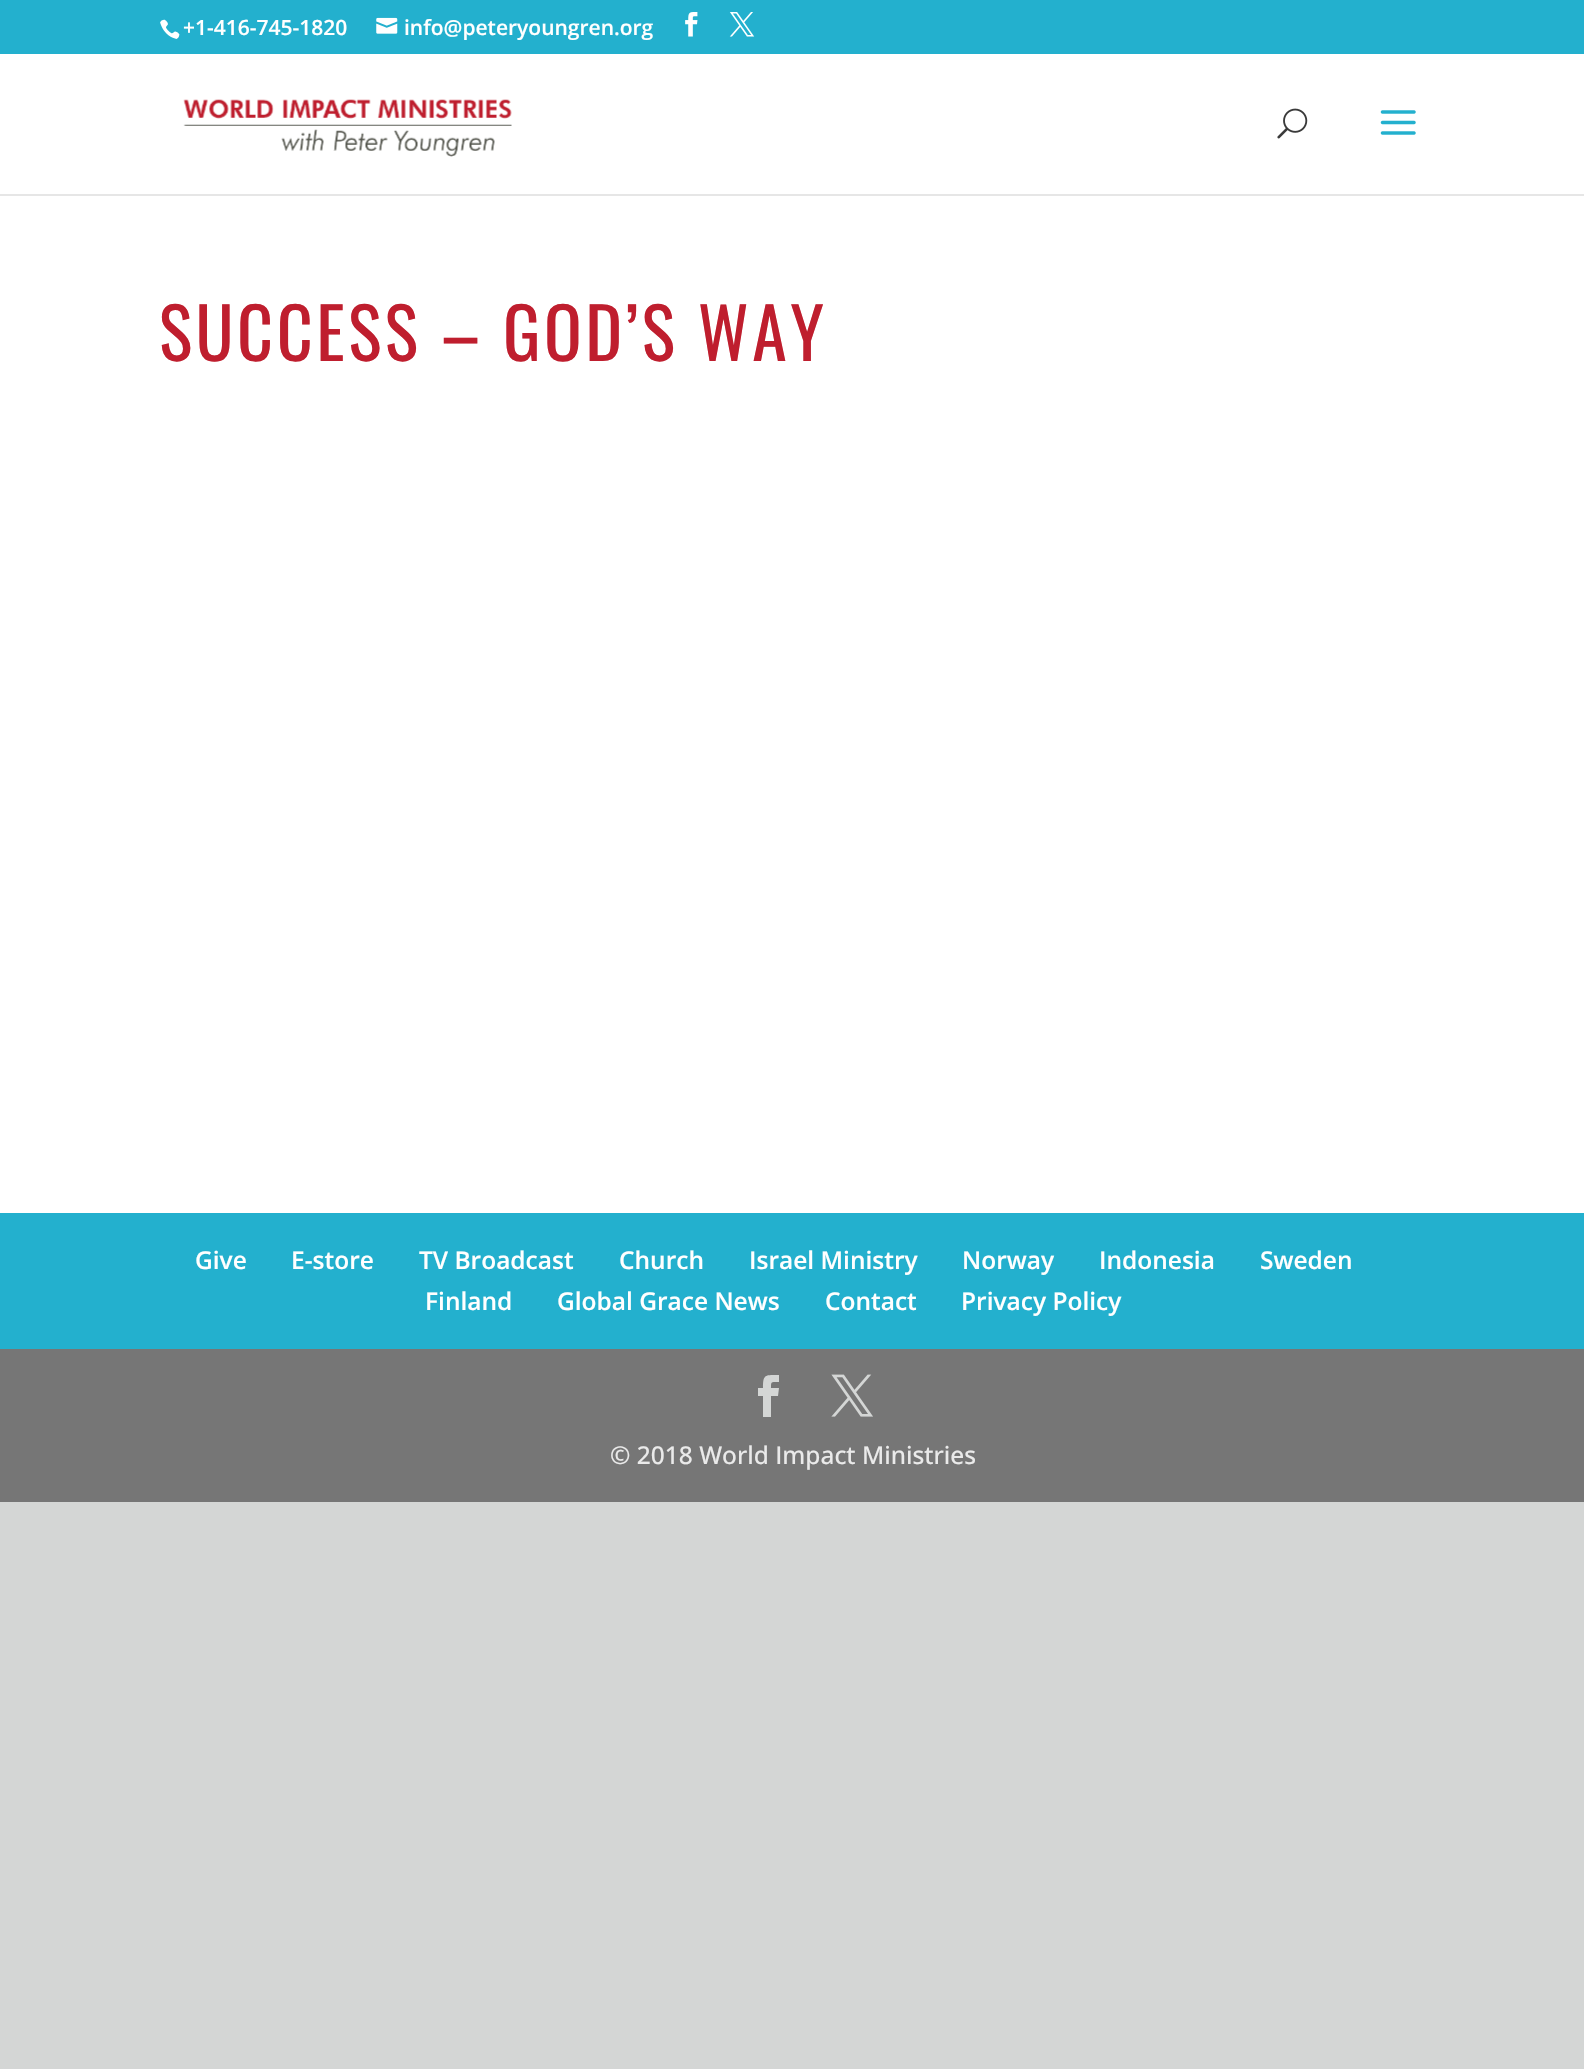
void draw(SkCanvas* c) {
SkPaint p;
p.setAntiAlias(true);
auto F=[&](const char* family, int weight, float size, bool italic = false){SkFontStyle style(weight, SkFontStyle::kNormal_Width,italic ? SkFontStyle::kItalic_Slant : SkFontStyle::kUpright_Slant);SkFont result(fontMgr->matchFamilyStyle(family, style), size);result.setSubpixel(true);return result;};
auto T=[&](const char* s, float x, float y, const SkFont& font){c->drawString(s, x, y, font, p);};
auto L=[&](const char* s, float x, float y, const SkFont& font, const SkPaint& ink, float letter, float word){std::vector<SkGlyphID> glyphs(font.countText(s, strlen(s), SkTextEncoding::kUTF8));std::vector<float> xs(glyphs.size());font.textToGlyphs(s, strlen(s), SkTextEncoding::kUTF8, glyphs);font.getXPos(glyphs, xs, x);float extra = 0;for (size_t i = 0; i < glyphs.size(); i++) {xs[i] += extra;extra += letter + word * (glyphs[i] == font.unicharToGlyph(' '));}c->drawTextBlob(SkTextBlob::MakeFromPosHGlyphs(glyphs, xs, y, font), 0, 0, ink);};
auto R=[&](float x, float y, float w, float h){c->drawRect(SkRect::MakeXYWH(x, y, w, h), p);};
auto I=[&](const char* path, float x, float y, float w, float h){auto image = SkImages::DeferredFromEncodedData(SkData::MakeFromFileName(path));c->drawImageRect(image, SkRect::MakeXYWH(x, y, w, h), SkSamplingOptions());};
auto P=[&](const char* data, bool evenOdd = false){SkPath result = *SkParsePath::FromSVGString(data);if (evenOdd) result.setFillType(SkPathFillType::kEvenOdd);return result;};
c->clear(0xffd4d6d5);
p.setColor(0xff23b0ce);
R(0,0,1584,54);
I("1.png",160,19,20,20);
auto f1 = F("Open Sans",600,21);
p.setColor(0xffffffff);
T("+1-416-745-1820",183,35,f1);
I("2.png",376,17,22,17);
T("info@peteryoungren.org",404,35,f1);
I("3.png",685,12,13,25);
I("4.png",729,12,26,25);
p.setColor(0xffe6e6e6);
c->drawPath(P("M0 194v2h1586v-140v138z"),p);
p.setColor(0xffffffff);
R(0,54,1584,140);
I("5.png",183,99,329,58);
I("6.png",1277,108,31,31);
I("7.png",1380,110,36,25);
R(0,196,1584,1017);
auto f2 = F("Oswald",400,70);
p.setColor(0xffbf1e2e);
L("SUCCESS – GOD’S WAY",159,361,f2,p,3.5,0);
p.setColor(0xff23b0ce);
R(0,1213,1584,136);
auto f3 = F("Open Sans",600,24.5);
p.setColor(0xffffffff);
T("Give",195,1269,f3);
T("E-store",291,1269,f3);
T("TV Broadcast",419,1269,f3);
T("Church",619,1269,f3);
T("Israel Ministry",749,1269,f3);
T("Norway",962,1269,f3);
T("Indonesia",1099,1269,f3);
T("Sweden",1260,1269,f3);
T("Finland",425,1310,f3);
T("Global Grace News",557,1310,f3);
T("Contact",825,1310,f3);
T("Privacy Policy",961,1310,f3);
p.setColor(0xff767676);
R(0,1349,1584,153);
p.setColor(0xffd4d6d5);
c->drawPath(P("M763 1417h8v-21h7l1-8h-8c0-7 0-6 8-6v-7c-14 0-16-1-16 13h-5v8h5z"),p);
I("8.png",831,1374,42,43);
auto f4 = F("Open Sans",500,24.5);
p.setColor(0xffeaeaea);
T("© 2018 World Impact Ministries",610,1464,f4);
}
